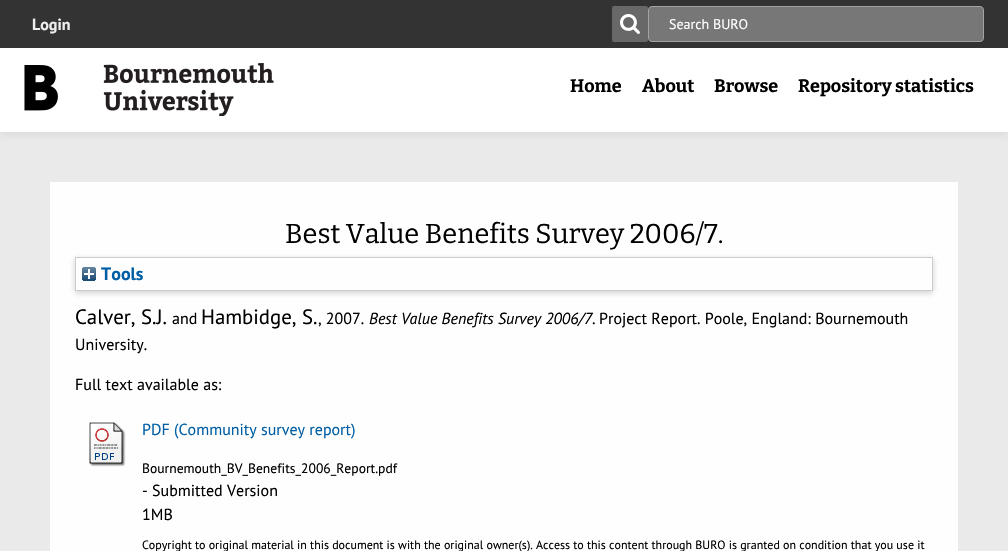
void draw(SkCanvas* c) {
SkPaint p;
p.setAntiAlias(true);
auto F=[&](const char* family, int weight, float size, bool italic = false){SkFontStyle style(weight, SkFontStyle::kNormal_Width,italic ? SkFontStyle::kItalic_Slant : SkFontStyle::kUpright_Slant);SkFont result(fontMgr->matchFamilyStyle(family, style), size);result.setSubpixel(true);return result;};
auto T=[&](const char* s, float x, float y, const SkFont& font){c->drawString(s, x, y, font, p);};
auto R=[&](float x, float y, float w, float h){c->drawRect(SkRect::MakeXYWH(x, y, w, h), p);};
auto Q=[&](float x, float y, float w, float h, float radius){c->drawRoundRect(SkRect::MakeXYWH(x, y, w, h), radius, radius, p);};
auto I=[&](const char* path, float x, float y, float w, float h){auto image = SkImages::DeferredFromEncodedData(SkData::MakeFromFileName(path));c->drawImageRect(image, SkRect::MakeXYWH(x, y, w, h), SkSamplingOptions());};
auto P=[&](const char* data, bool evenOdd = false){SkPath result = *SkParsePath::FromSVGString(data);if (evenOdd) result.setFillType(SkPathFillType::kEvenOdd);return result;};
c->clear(0xffeaeaea);
p.setColor(0x1a323232);
p.setMaskFilter(SkMaskFilter::MakeBlur(kNormal_SkBlurStyle, 4));
c->drawRect(SkRect::MakeXYWH(0,2,1008,132),p);
p.setMaskFilter(nullptr);
p.setColor(0xffffffff);
R(0,48,1008,84);
p.setColor(0xff333333);
R(0,0,1008,48);
auto f1 = F("PT Sans",700,16);
p.setColor(0xffeeeeee);
T("Login",32,30,f1);
p.setColor(0xff686868);
Q(612,6,36,36,2);
I("1.png",620,14,20,20);
p.setColor(0xff777777);
c->drawRoundRect(SkRect::MakeXYWH(648.5,6.5,335,35),3.5,3.5,p);
p.setStroke(true);
p.setStrokeWidth(1);
p.setColor(0xffa3a3a3);
c->drawRoundRect(SkRect::MakeXYWH(648.5,6.5,335,35),3.5,3.5,p);
auto f2 = F("PT Sans",400,14);
p.setStroke(false);
p.setColor(0xffffffff);
T("Search BURO",669,29,f2);
I("2.png",24,63,250,53);
auto f3 = F("Bitter",700,18);
p.setColor(0xff000000);
T("Home",570,92,f3);
T("About",642,92,f3);
T("Browse",714,92,f3);
T("Repository statistics",798,92,f3);
p.setColor(0xfffefefe);
R(50,182,908,369);
c->save();
c->clipPath(P("M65 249h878v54h-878zm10 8h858v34h-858z",true),true);
p.setColor(0x4d646464);
p.setMaskFilter(SkMaskFilter::MakeBlur(kNormal_SkBlurStyle, 3));
c->drawRect(SkRect::MakeXYWH(75,259,858,34),p);
p.setMaskFilter(nullptr);
c->restore();
auto f4 = F("Bitter",400,27.25);
p.setColor(0xff000000);
T("Best Value Benefits Survey 2006/7.",285,243,f4);
p.setStroke(true);
p.setColor(0xffcccccc);
c->drawRect(SkRect::MakeXYWH(75.5,257.5,857,33),p);
I("3.png",82,267,14,14);
auto f5 = F("PT Sans",700,18);
p.setStroke(false);
p.setColor(0xff005ea5);
T("Tools",101,280,f5);
auto f6 = F("PT Sans",400,20.75);
p.setColor(0xff000000);
T("Calver, S.J.",75,324,f6);
auto f7 = F("PT Sans",400,16);
T("and",172,324,f7);
T("Hambidge, S.",201,324,f6);
T(", 2007.",318,324,f7);
auto f8 = F("PT Sans",400,16,true);
T("Best Value Benefits Survey 2006/7.",369,324,f8);
T("Project Report. Poole, England: Bournemouth",599,324,f7);
T("University.",75,350,f7);
T("Full text available as:",75,390,f7);
I("4.png",89,422,37,45);
p.setColor(0xff005ea5);
T("PDF (Community survey report)",142,435,f7);
auto f9 = F("PT Sans",400,13.6);
p.setColor(0xff000000);
T("Bournemouth_BV_Benefits_2006_Report.pdf",142,473,f9);
T("- Submitted Version",142,496,f7);
T("1MB",142,520,f7);
auto f10 = F("PT Sans",400,12);
T("Copyright to original material in this document is with the original owner(s). Access to this content through BURO is granted on condition that you use it",142,549,f10);
}
